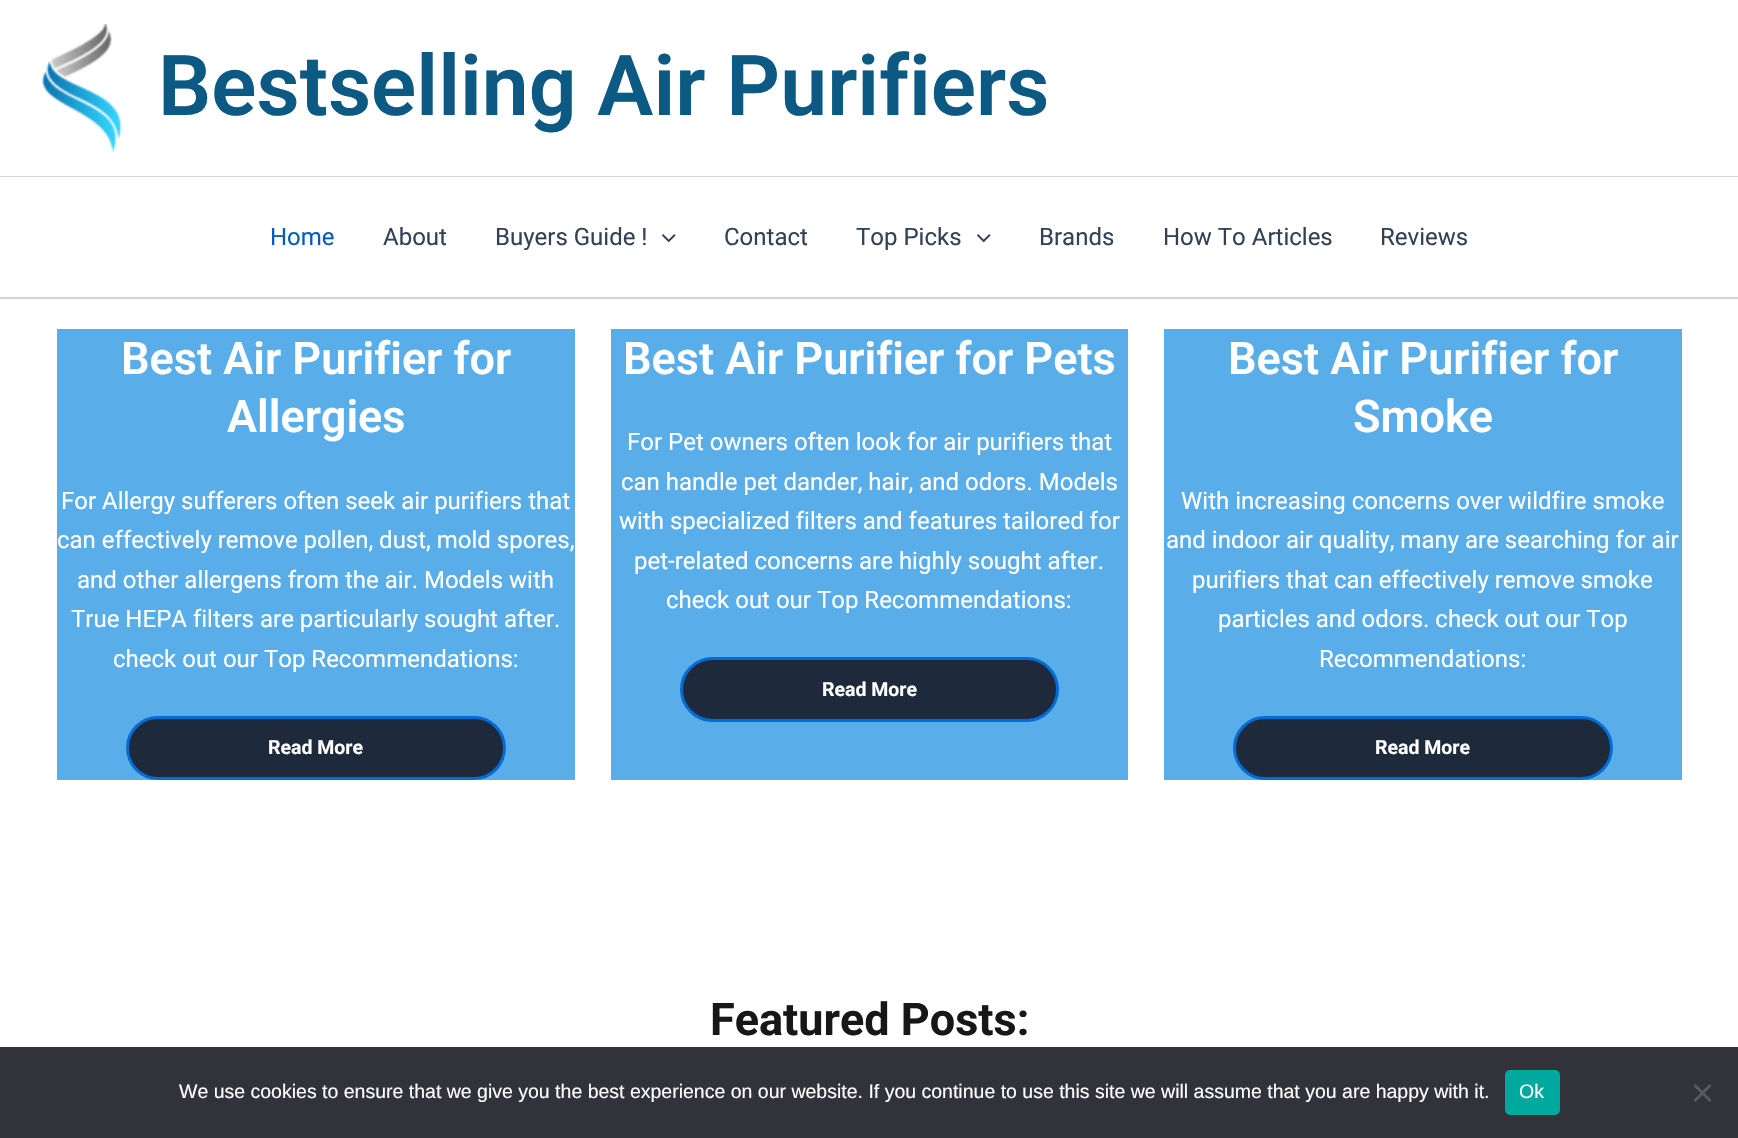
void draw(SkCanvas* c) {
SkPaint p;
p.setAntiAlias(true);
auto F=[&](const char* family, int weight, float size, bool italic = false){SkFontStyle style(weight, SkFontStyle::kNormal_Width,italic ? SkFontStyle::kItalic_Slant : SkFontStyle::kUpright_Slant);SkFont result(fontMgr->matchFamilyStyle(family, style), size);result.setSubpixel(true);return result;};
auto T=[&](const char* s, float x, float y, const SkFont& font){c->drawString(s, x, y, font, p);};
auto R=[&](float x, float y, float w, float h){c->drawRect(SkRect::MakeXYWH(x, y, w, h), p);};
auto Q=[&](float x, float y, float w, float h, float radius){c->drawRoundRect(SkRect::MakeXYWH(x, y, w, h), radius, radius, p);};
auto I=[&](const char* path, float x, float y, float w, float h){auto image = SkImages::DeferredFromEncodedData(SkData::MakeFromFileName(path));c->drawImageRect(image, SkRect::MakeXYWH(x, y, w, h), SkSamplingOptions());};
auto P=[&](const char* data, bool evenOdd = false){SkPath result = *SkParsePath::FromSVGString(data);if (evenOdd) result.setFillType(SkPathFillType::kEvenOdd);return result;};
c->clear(0xffffffff);
p.setColor(0xffd1d5db);
R(0,176,1738,1);
I("1.png",41,24,81,128);
auto f1 = F("Roboto",600,84);
p.setColor(0xff0c5983);
T("Bestselling Air Purifiers",158,115,f1);
p.setColor(0xffd1d5db);
R(0,297,1738,2);
auto f2 = F("Roboto",400,24);
p.setColor(0xff045cb4);
T("Home",270,245,f2);
p.setColor(0xff334155);
T("About",383,245,f2);
T("Buyers Guide !",495,245,f2);
I("2.png",662,234,14,9);
T("Contact",724,245,f2);
T("Top Picks",856,245,f2);
I("2.png",977,234,14,9);
T("Brands",1039,245,f2);
T("How To Articles",1163,245,f2);
T("Reviews",1380,245,f2);
p.setColor(0xff59ade8);
R(57,329,518,451);
auto f3 = F("Roboto",600,45);
p.setColor(0xffffffff);
T("Best Air Purifier for",121,374,f3);
T("Allergies",227,432,f3);
T("For Allergy sufferers often seek air purifiers that",61,509,f2);
T("can effectively remove pollen, dust, mold spores,",57,548,f2);
T("and other allergens from the air. Models with",77,588,f2);
T("True HEPA filters are particularly sought after.",71,627,f2);
T("check out our Top Recommendations:",113,667,f2);
p.setColor(0xff1e293b);
c->drawRoundRect(SkRect::MakeXYWH(127.5,717.5,377,61),30.5,30.5,p);
p.setStroke(true);
p.setStrokeWidth(3);
p.setColor(0xff046bd2);
c->drawRoundRect(SkRect::MakeXYWH(127.5,717.5,377,61),30.5,30.5,p);
auto f4 = F("Roboto",700,19.5);
p.setStroke(false);
p.setColor(0xffffffff);
T("Read More",268,754,f4);
p.setColor(0xff59ade8);
R(611,329,517,451);
p.setColor(0xffffffff);
T("Best Air Purifier for Pets",623,374,f3);
T("For Pet owners often look for air purifiers that",627,450,f2);
T("can handle pet dander, hair, and odors. Models",621,490,f2);
T("with specialized filters and features tailored for",619,529,f2);
T("pet-related concerns are highly sought after.",634,569,f2);
T("check out our Top Recommendations:",666,608,f2);
p.setColor(0xff1e293b);
c->drawRoundRect(SkRect::MakeXYWH(681.5,658.5,376,62),31,31,p);
p.setStroke(true);
p.setColor(0xff046bd2);
c->drawRoundRect(SkRect::MakeXYWH(681.5,658.5,376,62),31,31,p);
p.setStroke(false);
p.setColor(0xffffffff);
T("Read More",822,696,f4);
p.setColor(0xff59ade8);
R(1164,329,518,451);
p.setColor(0xffffffff);
T("Best Air Purifier for",1228,374,f3);
T("Smoke",1353,432,f3);
T("With increasing concerns over wildfire smoke",1181,509,f2);
T("and indoor air quality, many are searching for air",1166,548,f2);
T("purifiers that can effectively remove smoke",1192,588,f2);
T("particles and odors. check out our Top",1218,627,f2);
T("Recommendations:",1319,667,f2);
p.setColor(0xff1e293b);
c->drawRoundRect(SkRect::MakeXYWH(1234.5,717.5,377,61),30.5,30.5,p);
p.setStroke(true);
p.setColor(0xff046bd2);
c->drawRoundRect(SkRect::MakeXYWH(1234.5,717.5,377,61),30.5,30.5,p);
p.setStroke(false);
p.setColor(0xffffffff);
T("Read More",1375,754,f4);
auto f5 = F("Roboto",700,45);
p.setColor(0xff171717);
T("Featured Posts:",710,1035,f5);
p.setColor(0xff32323a);
R(0,1047,1738,91);
auto f6 = F("Liberation Sans",400,19.5);
p.setColor(0xffffffff);
T("We use cookies to ensure that we give you the best experience on our website. If you continue to use this site we will assume that you are happy with it.",179,1098,f6);
p.setColor(0xff00a99d);
Q(1505,1070,55,45,5);
p.setColor(0xffffffff);
T("Ok",1519,1098,f6);
p.setColor(0xff59595d);
c->drawPath(P("M1709.5 1084l2 2l-16 16l-2-2z"),p);
c->drawPath(P("M1693.5 1086l2-2l16 16l-2 2z"),p);
}
